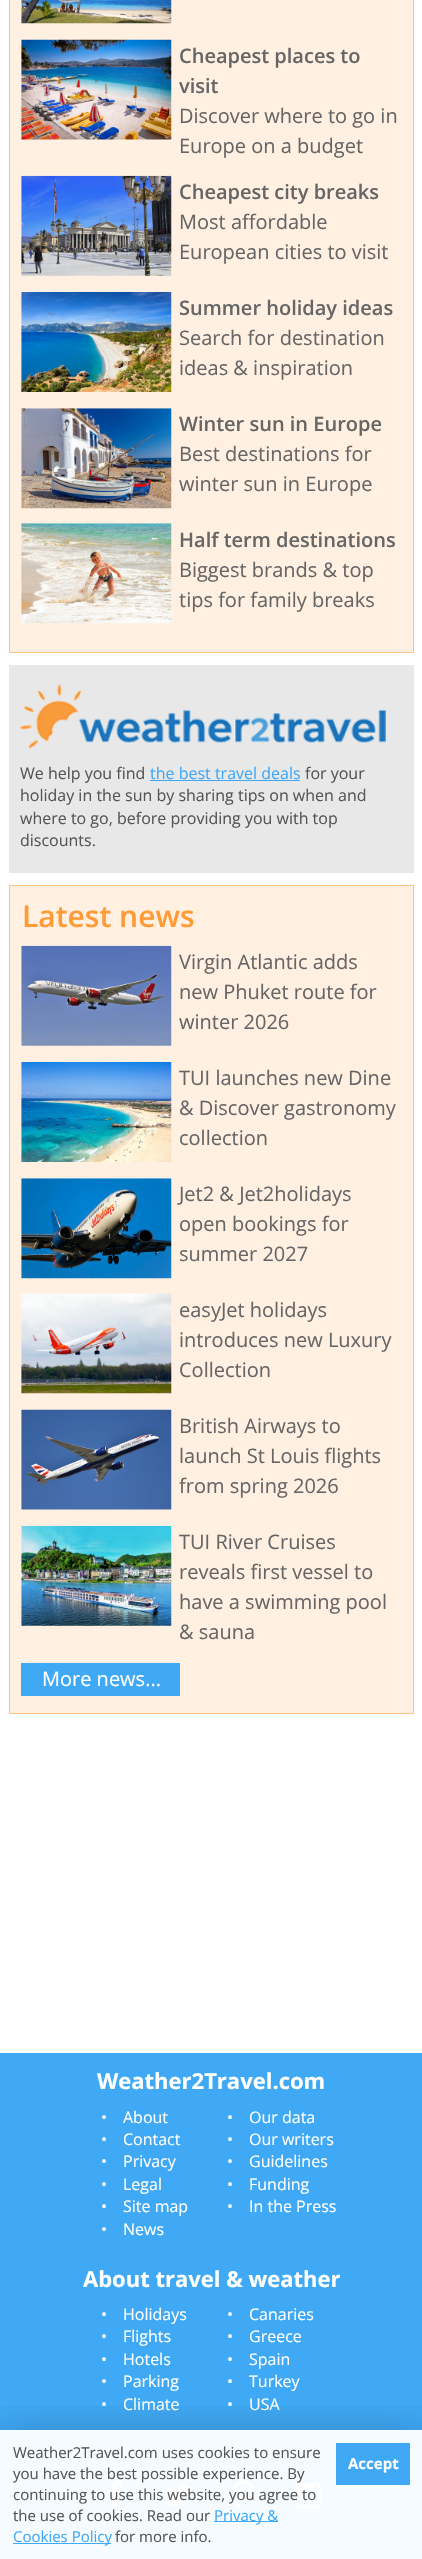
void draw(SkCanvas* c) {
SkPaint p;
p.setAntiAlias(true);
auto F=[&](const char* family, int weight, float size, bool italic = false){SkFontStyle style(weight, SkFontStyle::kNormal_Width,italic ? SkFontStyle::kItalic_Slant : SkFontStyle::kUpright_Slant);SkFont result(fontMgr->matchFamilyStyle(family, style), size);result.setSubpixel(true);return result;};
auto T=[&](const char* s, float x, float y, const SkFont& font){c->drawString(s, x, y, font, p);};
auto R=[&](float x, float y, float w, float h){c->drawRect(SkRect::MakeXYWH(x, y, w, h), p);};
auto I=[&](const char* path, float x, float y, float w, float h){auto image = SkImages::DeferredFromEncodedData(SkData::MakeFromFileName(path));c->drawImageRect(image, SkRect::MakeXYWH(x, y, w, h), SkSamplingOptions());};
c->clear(0xffffffff);
p.setColor(0xfffff0e1);
c->drawRect(SkRect::MakeXYWH(9.5,-.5,404,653),p);
p.setStroke(true);
p.setStrokeWidth(1);
p.setColor(0xffffc286);
c->drawRect(SkRect::MakeXYWH(9.5,-.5,404,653),p);
I("1.png",21,0,151,24);
I("2.png",21,39,151,101);
auto f1 = F("Open Sans",600,20);
p.setStroke(false);
p.setColor(0xff666666);
T("Cheapest places to",179,63,f1);
T("visit",179,93,f1);
auto f2 = F("Open Sans",400,20);
T("Discover where to go in",179,123,f2);
T("Europe on a budget",179,153,f2);
I("3.png",21,175,151,101);
T("Cheapest city breaks",179,199,f1);
T("Most affordable",179,229,f2);
T("European cities to visit",179,259,f2);
I("4.png",21,292,151,100);
T("Summer holiday ideas",179,315,f1);
T("Search for destination",179,345,f2);
T("ideas & inspiration",179,375,f2);
I("5.png",21,408,151,101);
T("Winter sun in Europe",179,431,f1);
T("Best destinations for",179,461,f2);
T("winter sun in Europe",179,491,f2);
I("6.png",21,523,151,101);
T("Half term destinations",179,547,f1);
T("Biggest brands & top",179,577,f2);
T("tips for family breaks",179,607,f2);
p.setColor(0xffe8e8e8);
R(9,665,405,208);
I("7.png",20,684,366,65);
auto f3 = F("Open Sans",400,16);
p.setColor(0xff555555);
T("We help you find",20,779,f3);
p.setColor(0xff3fa9f5);
T("the best travel deals",150,779,f3);
R(150,780,150,1);
p.setColor(0xff555555);
T("for your",305,779,f3);
T("holiday in the sun by sharing tips on when and",20,801,f3);
T("where to go, before providing you with top",20,824,f3);
T("discounts.",20,846,f3);
p.setColor(0xfffff0e1);
c->drawRect(SkRect::MakeXYWH(9.5,885.5,404,828),p);
p.setStroke(true);
p.setColor(0xffffc286);
c->drawRect(SkRect::MakeXYWH(9.5,885.5,404,828),p);
auto f4 = F("Open Sans",600,30);
p.setStroke(false);
p.setColor(0xffff9a35);
T("Latest news",22,927,f4);
I("8.png",21,945,151,101);
p.setColor(0xff666666);
T("Virgin Atlantic adds",179,969,f2);
T("new Phuket route for",179,999,f2);
T("winter 2026",179,1029,f2);
I("9.png",21,1062,151,100);
T("TUI launches new Dine",179,1085,f2);
T("& Discover gastronomy",179,1115,f2);
T("collection",179,1145,f2);
I("10.png",21,1178,151,101);
T("Jet2 & Jet2holidays",179,1201,f2);
T("open bookings for",179,1231,f2);
T("summer 2027",179,1261,f2);
I("11.png",21,1293,151,101);
T("easyJet holidays",179,1317,f2);
T("introduces new Luxury",179,1347,f2);
T("Collection",179,1377,f2);
I("12.png",21,1409,151,101);
T("British Airways to",179,1433,f2);
T("launch St Louis flights",179,1463,f2);
T("from spring 2026",179,1493,f2);
I("13.png",21,1525,151,101);
T("TUI River Cruises",179,1549,f2);
T("reveals first vessel to",179,1579,f2);
T("have a swimming pool",179,1609,f2);
T("& sauna",179,1639,f2);
p.setColor(0xff3fa9f5);
R(21,1663,159,33);
p.setColor(0xffffffff);
T("More news...",42,1686,f2);
p.setColor(0xff3fa9f5);
R(0,2053,422,377);
p.setColor(0xfff5fbff);
R(0,2430,422,129);
auto f5 = F("Open Sans",700,22);
p.setColor(0xffffffff);
T("Weather2Travel.com",97,2089,f5);
T("•",101,2123,f3);
T("About",123,2123,f3);
T("•",227,2123,f3);
T("Our data",249,2123,f3);
T("•",101,2145,f3);
T("Contact",123,2145,f3);
T("•",227,2145,f3);
T("Our writers",249,2145,f3);
T("•",101,2167,f3);
T("Privacy",123,2167,f3);
T("•",227,2167,f3);
T("Guidelines",249,2167,f3);
T("•",101,2190,f3);
T("Legal",123,2190,f3);
T("•",227,2190,f3);
T("Funding",249,2190,f3);
T("•",101,2212,f3);
T("Site map",123,2212,f3);
T("•",227,2212,f3);
T("In the Press",249,2212,f3);
T("•",101,2235,f3);
T("News",123,2235,f3);
T("About travel & weather",83,2287,f5);
T("•",101,2320,f3);
T("Holidays",123,2320,f3);
T("•",227,2320,f3);
T("Canaries",249,2320,f3);
T("•",101,2342,f3);
T("Flights",123,2342,f3);
T("•",227,2342,f3);
T("Greece",249,2342,f3);
T("•",101,2365,f3);
T("Hotels",123,2365,f3);
T("•",227,2365,f3);
T("Spain",249,2365,f3);
T("•",101,2387,f3);
T("Parking",123,2387,f3);
T("•",227,2387,f3);
T("Turkey",249,2387,f3);
T("•",101,2410,f3);
T("Climate",123,2410,f3);
T("•",227,2410,f3);
T("USA",249,2410,f3);
I("14.png",107,2480,16,29);
I("15.png",166,2484,26,23);
I("16.png",232,2480,22,29);
I("17.png",295,2482,26,27);
c->save();
c->clipRect(SkRect::MakeXYWH(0,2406,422,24));
p.setColor(0x33000000);
p.setMaskFilter(SkMaskFilter::MakeBlur(kNormal_SkBlurStyle, 19));
c->drawRect(SkRect::MakeXYWH(0,2430,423,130),p);
p.setMaskFilter(nullptr);
c->restore();
auto f6 = F("Open Sans",400,15);
p.setColor(0xff555555);
T("Weather2Travel.com uses cookies to ensure",13,2458,f6);
T("you have the best possible experience. By",13,2479,f6);
T("continuing to use this website, you agree to",13,2500,f6);
T("the use of cookies. Read our",13,2521,f6);
p.setColor(0xff3fa9f5);
R(214,2521,64,1);
T("Privacy &",214,2521,f6);
R(13,2543,98,1);
T("Cookies Policy",13,2542,f6);
p.setColor(0xff555555);
T("for more info.",115,2542,f6);
p.setColor(0xff3fa9f5);
R(336,2443,74,42);
auto f7 = F("Open Sans",700,15);
p.setColor(0xffffffff);
T("Accept",348,2469,f7);
}
